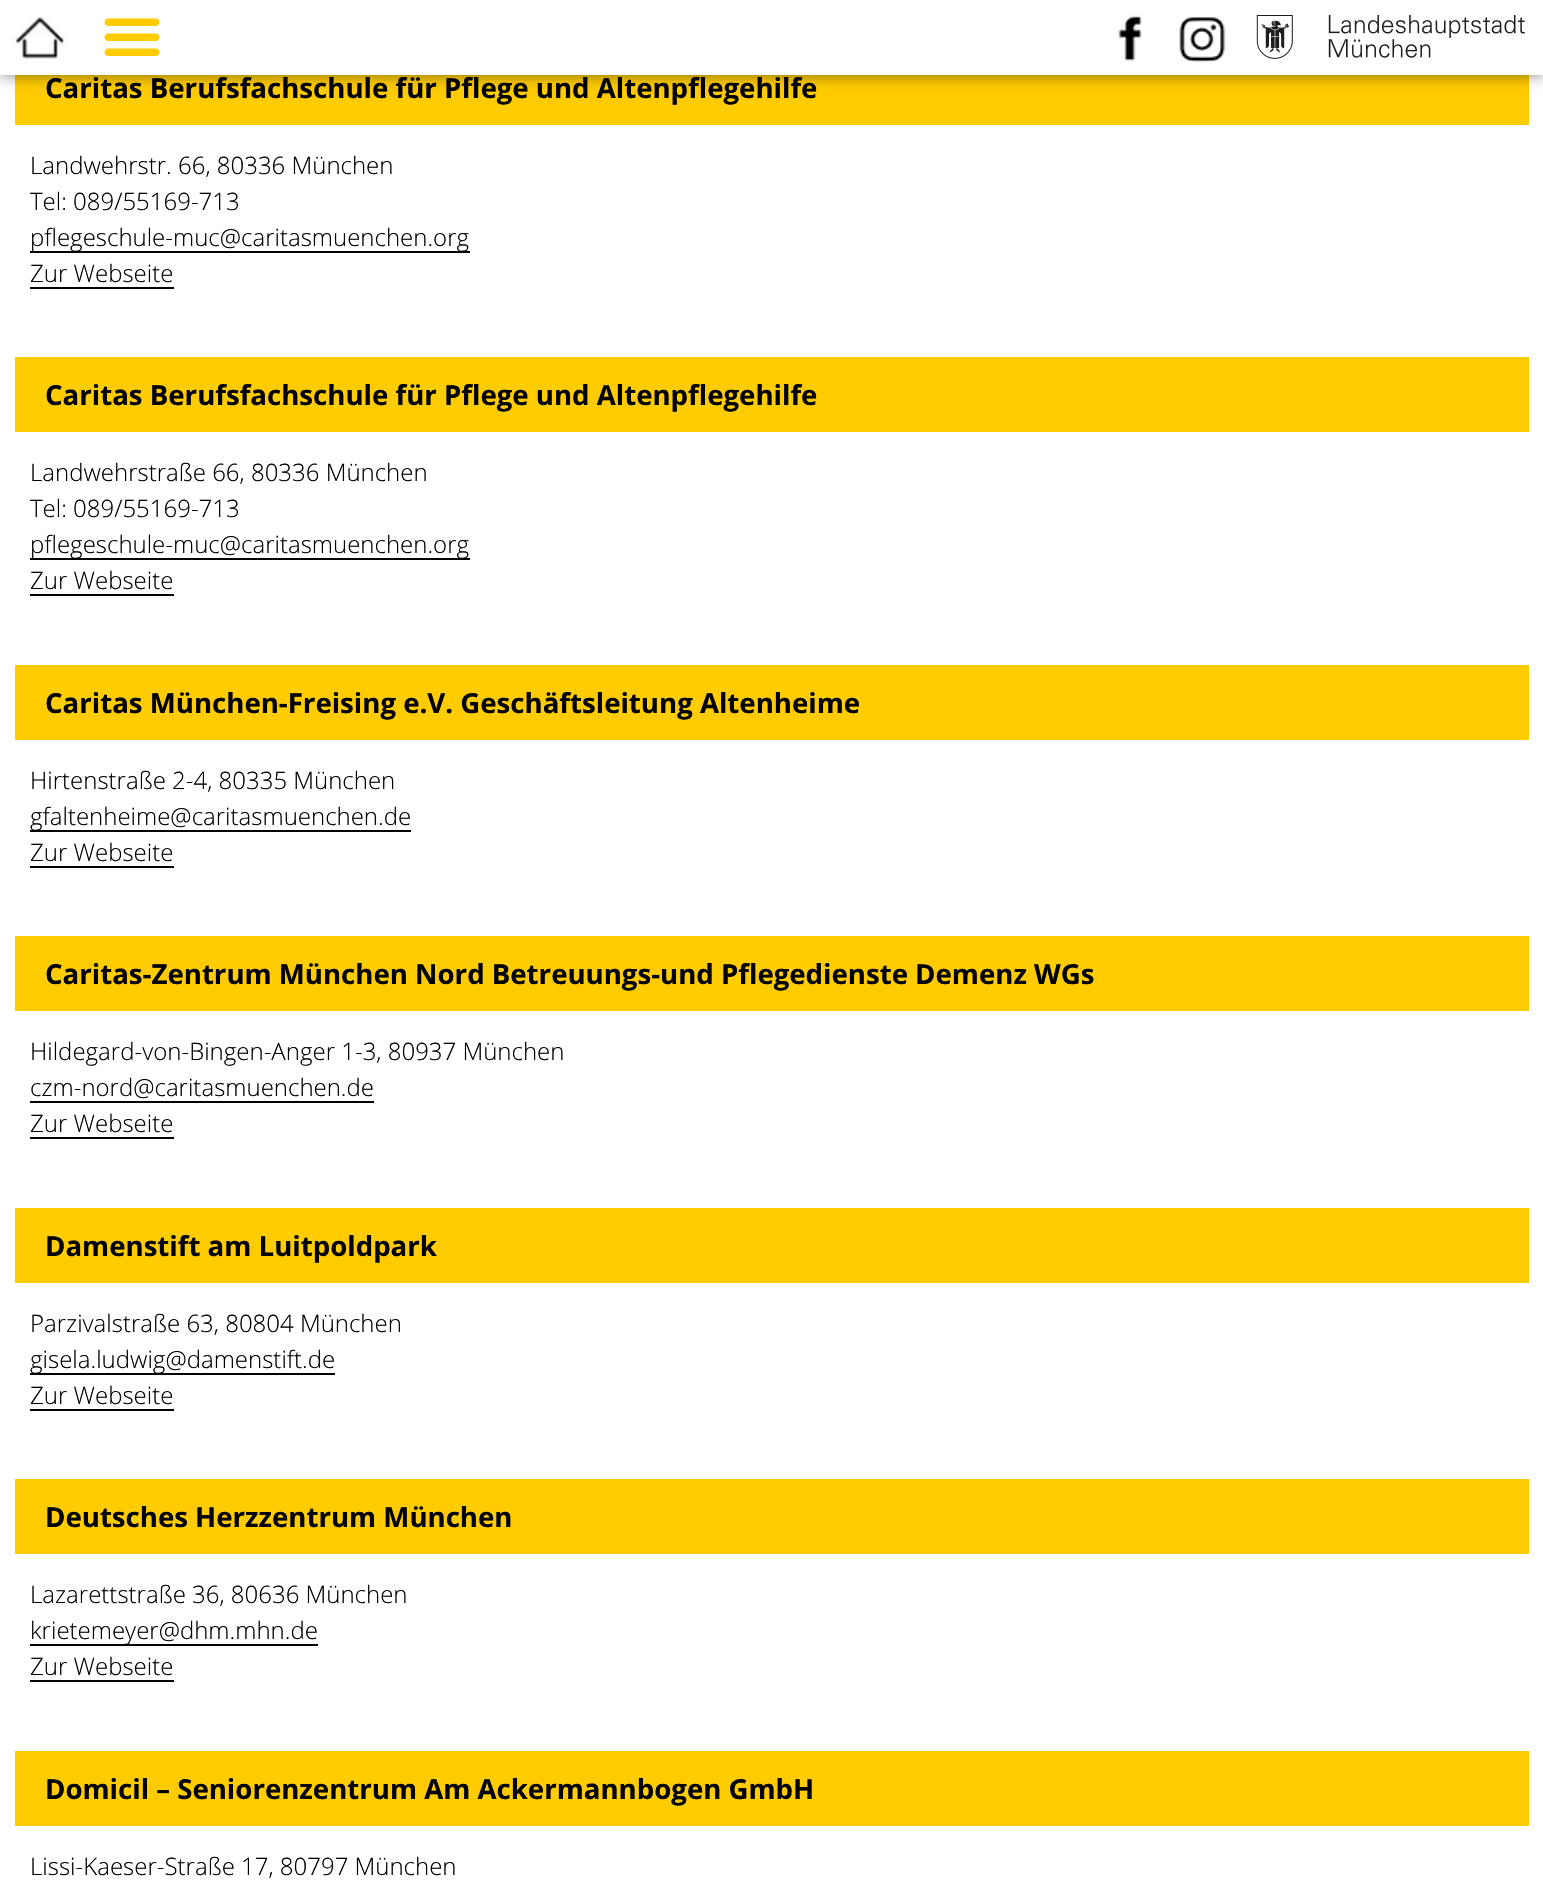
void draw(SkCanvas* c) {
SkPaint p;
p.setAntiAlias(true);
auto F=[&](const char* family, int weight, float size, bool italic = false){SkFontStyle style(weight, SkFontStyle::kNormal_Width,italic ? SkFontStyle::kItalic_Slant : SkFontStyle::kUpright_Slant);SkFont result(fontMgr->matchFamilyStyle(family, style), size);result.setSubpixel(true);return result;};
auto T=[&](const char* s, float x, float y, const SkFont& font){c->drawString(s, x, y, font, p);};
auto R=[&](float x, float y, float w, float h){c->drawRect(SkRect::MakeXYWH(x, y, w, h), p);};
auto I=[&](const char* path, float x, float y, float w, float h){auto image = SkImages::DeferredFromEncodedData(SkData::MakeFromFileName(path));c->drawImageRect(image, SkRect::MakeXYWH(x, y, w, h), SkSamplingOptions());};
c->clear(0xffffffff);
p.setColor(0xffffcc01);
R(15,75,1514,50);
p.setColor(0x80000000);
p.setMaskFilter(SkMaskFilter::MakeBlur(kNormal_SkBlurStyle, 7.5));
c->drawRect(SkRect::MakeXYWH(0,0,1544,75),p);
p.setMaskFilter(nullptr);
p.setColor(0xffffffff);
R(0,0,1543,75);
I("1.png",9,17,59,42);
I("2.png",104,18,56,38);
I("3.png",1118,15,24,46);
I("4.png",1179,17,47,46);
I("5.png",1256,15,269,44);
auto f1 = F("Open Sans",700,27.6);
p.setColor(0xff000000);
T("Caritas Berufsfachschule für Pflege und Altenpflegehilfe",45,98,f1);
auto f2 = F("Open Sans",300,24);
T("Landwehrstr. 66, 80336 München",30,174,f2);
T("Tel: 089/55169-713",30,210,f2);
R(30,251,440,2);
T("pflegeschule-muc@caritasmuenchen.org",30,246,f2);
T("Zur Webseite",30,282,f2);
R(30,287,144,2);
p.setColor(0xffffcc01);
R(15,357,1514,75);
p.setColor(0xff000000);
T("Caritas Berufsfachschule für Pflege und Altenpflegehilfe",45,405,f1);
T("Landwehrstraße 66, 80336 München",30,481,f2);
T("Tel: 089/55169-713",30,517,f2);
R(30,558,440,2);
T("pflegeschule-muc@caritasmuenchen.org",30,553,f2);
T("Zur Webseite",30,589,f2);
R(30,594,144,2);
p.setColor(0xffffcc01);
R(15,665,1514,75);
p.setColor(0xff000000);
T("Caritas München-Freising e.V. Geschäftsleitung Altenheime",45,713,f1);
T("Hirtenstraße 2-4, 80335 München",30,789,f2);
R(30,830,381,2);
T("gfaltenheime@caritasmuenchen.de",30,825,f2);
T("Zur Webseite",30,861,f2);
R(30,866,144,2);
p.setColor(0xffffcc01);
R(15,936,1514,75);
p.setColor(0xff000000);
T("Caritas-Zentrum München Nord Betreuungs-und Pflegedienste Demenz WGs",45,984,f1);
T("Hildegard-von-Bingen-Anger 1-3, 80937 München",30,1060,f2);
T("czm-nord@caritasmuenchen.de",30,1096,f2);
R(30,1101,344,2);
T("Zur Webseite",30,1132,f2);
R(30,1137,144,2);
p.setColor(0xffffcc01);
R(15,1208,1514,75);
p.setColor(0xff000000);
T("Damenstift am Luitpoldpark",45,1256,f1);
T("Parzivalstraße 63, 80804 München",30,1332,f2);
R(30,1373,305,2);
T("gisela.ludwig@damenstift.de",30,1368,f2);
T("Zur Webseite",30,1404,f2);
R(30,1409,144,2);
p.setColor(0xffffcc01);
R(15,1479,1514,75);
p.setColor(0xff000000);
T("Deutsches Herzzentrum München",45,1527,f1);
T("Lazarettstraße 36, 80636 München",30,1603,f2);
R(30,1644,288,2);
T("krietemeyer@dhm.mhn.de",30,1639,f2);
T("Zur Webseite",30,1675,f2);
R(30,1680,144,2);
p.setColor(0xffffcc01);
R(15,1751,1514,75);
p.setColor(0xff000000);
T("Domicil – Seniorenzentrum Am Ackermannbogen GmbH",45,1799,f1);
T("Lissi-Kaeser-Straße 17, 80797 München",30,1875,f2);
}
